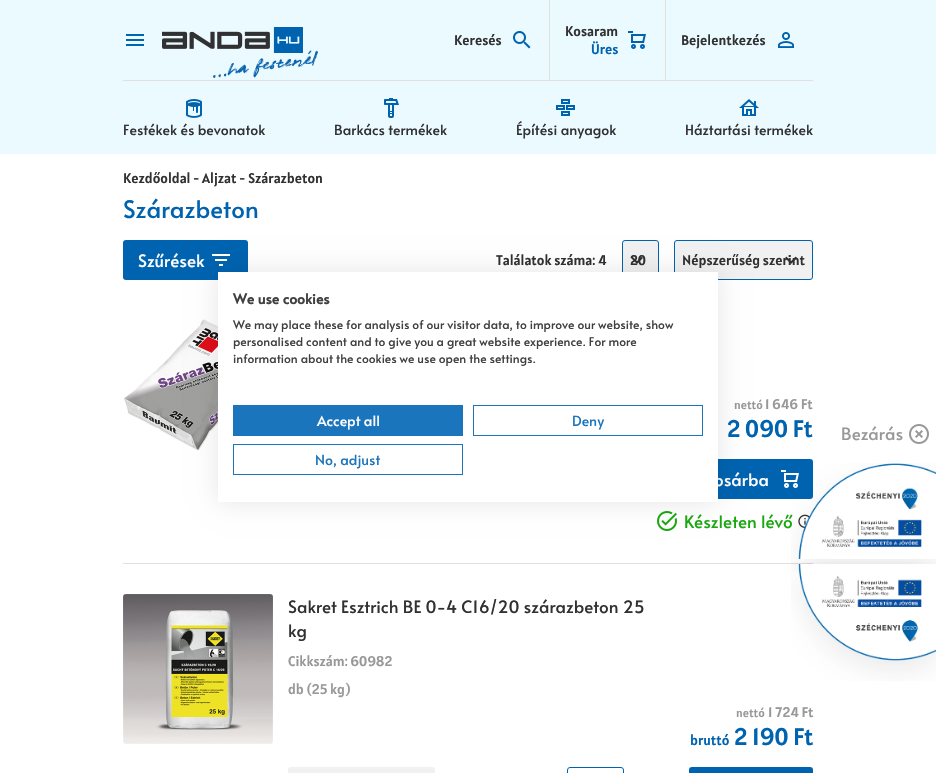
void draw(SkCanvas* c) {
SkPaint p;
p.setAntiAlias(true);
auto F=[&](const char* family, int weight, float size, bool italic = false){SkFontStyle style(weight, SkFontStyle::kNormal_Width,italic ? SkFontStyle::kItalic_Slant : SkFontStyle::kUpright_Slant);SkFont result(fontMgr->matchFamilyStyle(family, style), size);result.setSubpixel(true);return result;};
auto T=[&](const char* s, float x, float y, const SkFont& font){c->drawString(s, x, y, font, p);};
auto R=[&](float x, float y, float w, float h){c->drawRect(SkRect::MakeXYWH(x, y, w, h), p);};
auto Q=[&](float x, float y, float w, float h, float radius){c->drawRoundRect(SkRect::MakeXYWH(x, y, w, h), radius, radius, p);};
auto I=[&](const char* path, float x, float y, float w, float h){auto image = SkImages::DeferredFromEncodedData(SkData::MakeFromFileName(path));c->drawImageRect(image, SkRect::MakeXYWH(x, y, w, h), SkSamplingOptions());};
c->clear(0xffffffff);
p.setColor(0xffebfaff);
R(0,0,936,154);
I("1.png",126,34,18,12);
I("2.png",162,27,141,26);
I("3.png",213,50,105,28);
auto f1 = F("Alatsi",400,14);
p.setColor(0xff313133);
T("Keresés",454,45,f1);
I("4.png",513,31,18,18);
p.setColor(0xffe0e0e0);
R(549,0,1,80);
p.setColor(0xff313133);
T("Kosaram",565,36,f1);
p.setColor(0xff0063b0);
T("Üres",591,54,f1);
I("5.png",628,31,18,18);
p.setColor(0xffe0e0e0);
R(665,0,1,80);
p.setColor(0xff313133);
T("Bejelentkezés",681,45,f1);
I("6.png",778,32,16,16);
p.setColor(0xffe0e0e0);
R(123,80,690,1);
I("7.png",186,99,16,19);
auto f2 = F("Alata",400,14);
p.setColor(0xff313133);
T("Festékek és bevonatok",123,135,f2);
I("8.png",384,98,15,20);
T("Barkács termékek",334,135,f2);
I("9.png",556,99,19,17);
T("Építési anyagok",516,135,f2);
I("10.png",739,99,20,17);
T("Háztartási termékek",685,135,f2);
T("Kezdőoldal - Aljzat - Szárazbeton",123,183,f1);
auto f3 = F("Alata",400,24);
p.setColor(0xff0063b0);
T("Szárazbeton",123,218,f3);
Q(123,240,125,40,3);
auto f4 = F("Alata",400,17);
p.setColor(0xffffffff);
T("Szűrések",138,267,f4);
I("11.png",212,254,18,12);
p.setColor(0xff313133);
T("Találatok száma: 4",496,265,f1);
p.setColor(0xfff1f1f1);
c->drawRoundRect(SkRect::MakeXYWH(622.5,240.5,36,39),2.5,2.5,p);
p.setStroke(true);
p.setStrokeWidth(1);
p.setColor(0xff0063b0);
c->drawRoundRect(SkRect::MakeXYWH(622.5,240.5,36,39),2.5,2.5,p);
p.setStroke(false);
p.setColor(0xff313133);
T("20",630,265,f1);
I("12.png",631,256,12,8);
p.setColor(0xfff1f1f1);
c->drawRoundRect(SkRect::MakeXYWH(674.5,240.5,138,39),2.5,2.5,p);
p.setStroke(true);
p.setColor(0xff0063b0);
c->drawRoundRect(SkRect::MakeXYWH(674.5,240.5,138,39),2.5,2.5,p);
p.setStroke(false);
p.setColor(0xff313133);
T("Népszerűség szerint",682,265,f1);
I("13.png",785,256,12,8);
p.setColor(0xffe0e0e0);
R(123,563,690,1);
I("14.png",124,319,94,132);
auto f5 = F("Alatsi",400,12);
p.setColor(0xff989899);
T("nettó",734,409,f5);
T("1 646 Ft",765,409,f1);
auto f6 = F("Alatsi",400,24);
p.setColor(0xff0063b0);
T("2 090 Ft",727,437,f6);
Q(689,459,124,40,3);
p.setColor(0xffffffff);
T("osárba",714,486,f4);
I("15.png",781,470,18,18);
I("16.png",657,511,20,20);
p.setColor(0xff19a80f);
T("Készleten lévő",684,528,f4);
I("17.png",798,514,12,14);
I("18.png",123,594,150,150);
p.setColor(0xff313133);
T("Sakret Esztrich BE 0-4 C16/20 szárazbeton 25",288,613,f4);
T("kg",288,637,f4);
p.setColor(0xff989899);
T("Cikkszám: 60982",288,666,f1);
T("db (25 kg)",288,694,f1);
T("nettó",736,717,f5);
T("1 724 Ft",768,717,f1);
p.setColor(0xff0063b0);
T("bruttó",690,745,f1);
T("2 190 Ft",734,745,f6);
p.setColor(0xfff1f1f1);
Q(288,767,147,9,3);
p.setStroke(true);
p.setColor(0xff0063b0);
c->drawRoundRect(SkRect::MakeXYWH(567.5,767.5,56,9),2.5,2.5,p);
p.setStroke(false);
Q(689,767,124,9,3);
p.setColor(0xff989899);
T("Bezárás",841,440,f4);
I("19.png",909,424,20,20);
I("20.png",791,463,145,109);
I("21.png",791,562,145,119);
p.setColor(0x1a000000);
p.setMaskFilter(SkMaskFilter::MakeBlur(kNormal_SkBlurStyle, 12));
c->drawRect(SkRect::MakeXYWH(218,272,500,230),p);
p.setMaskFilter(nullptr);
p.setColor(0xffffffff);
R(218,272,500,230);
auto f7 = F("Alata",700,14);
p.setColor(0xff404041);
T("We use cookies",233,304,f7);
auto f8 = F("Alata",400,12);
T("We may place these for analysis of our visitor data, to improve our website, show",233,329,f8);
T("personalised content and to give you a great website experience. For more",233,346,f8);
T("information about the cookies we use open the settings.",233,363,f8);
p.setColor(0xff1b75bc);
R(233,405,230,31);
p.setColor(0xffffffff);
T("Accept all",317,426,f2);
p.setStroke(true);
p.setColor(0xff1b75bc);
c->drawRect(SkRect::MakeXYWH(473.5,405.5,229,30),p);
p.setStroke(false);
T("Deny",572,426,f2);
p.setStroke(true);
c->drawRect(SkRect::MakeXYWH(233.5,444.5,229,30),p);
p.setStroke(false);
T("No, adjust",315,465,f2);
}
